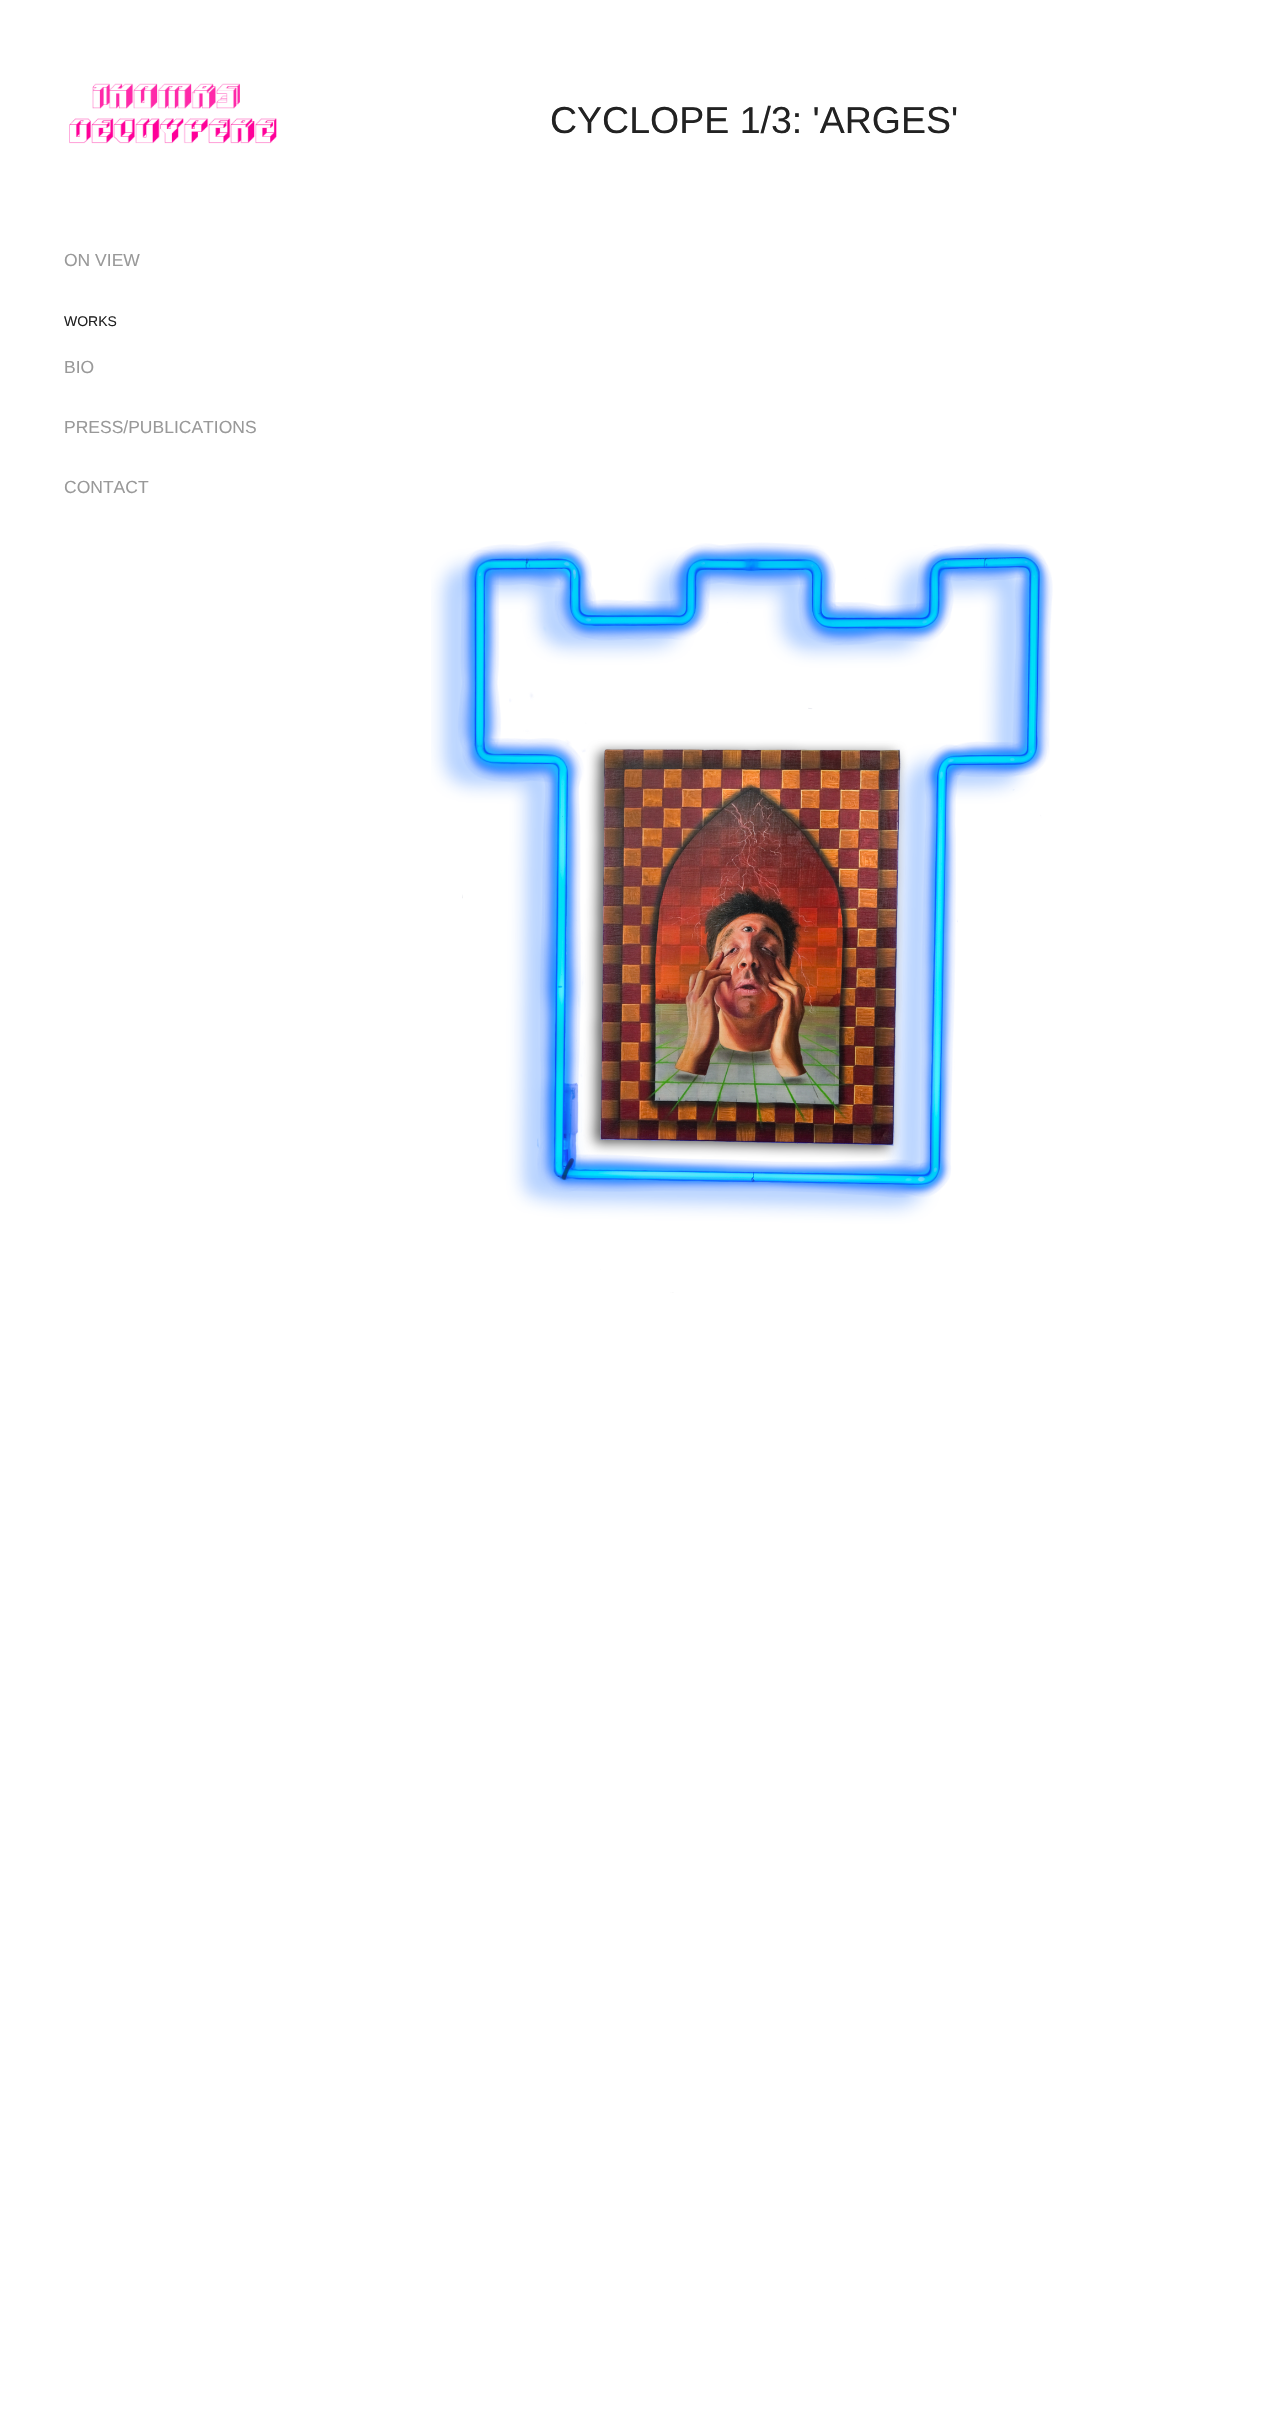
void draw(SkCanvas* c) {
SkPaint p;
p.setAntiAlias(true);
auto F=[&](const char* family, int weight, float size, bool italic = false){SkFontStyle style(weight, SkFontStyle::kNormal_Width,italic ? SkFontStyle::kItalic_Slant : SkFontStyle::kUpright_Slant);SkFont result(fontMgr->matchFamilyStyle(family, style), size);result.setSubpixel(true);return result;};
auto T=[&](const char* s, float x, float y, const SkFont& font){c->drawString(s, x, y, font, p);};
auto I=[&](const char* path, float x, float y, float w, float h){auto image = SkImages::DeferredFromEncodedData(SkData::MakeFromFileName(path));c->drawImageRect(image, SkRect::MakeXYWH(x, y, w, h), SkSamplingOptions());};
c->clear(0xffffffff);
auto f1 = F("Liberation Sans",400,37.5);
p.setColor(0xff222222);
T("CYCLOPE 1/3: 'ARGES'",550,133,f1);
I("1.png",431,541,622,752);
I("2.png",69,83,208,61);
auto f2 = F("Liberation Sans",400,17.5);
p.setColor(0xff999999);
T("ON VIEW",64,266,f2);
auto f3 = F("Liberation Sans",400,14);
p.setColor(0xff222222);
T("WORKS",64,326,f3);
p.setColor(0xff999999);
T("BIO",64,373,f2);
T("PRESS/PUBLICATIONS",64,433,f2);
T("CONTACT",64,493,f2);
}
